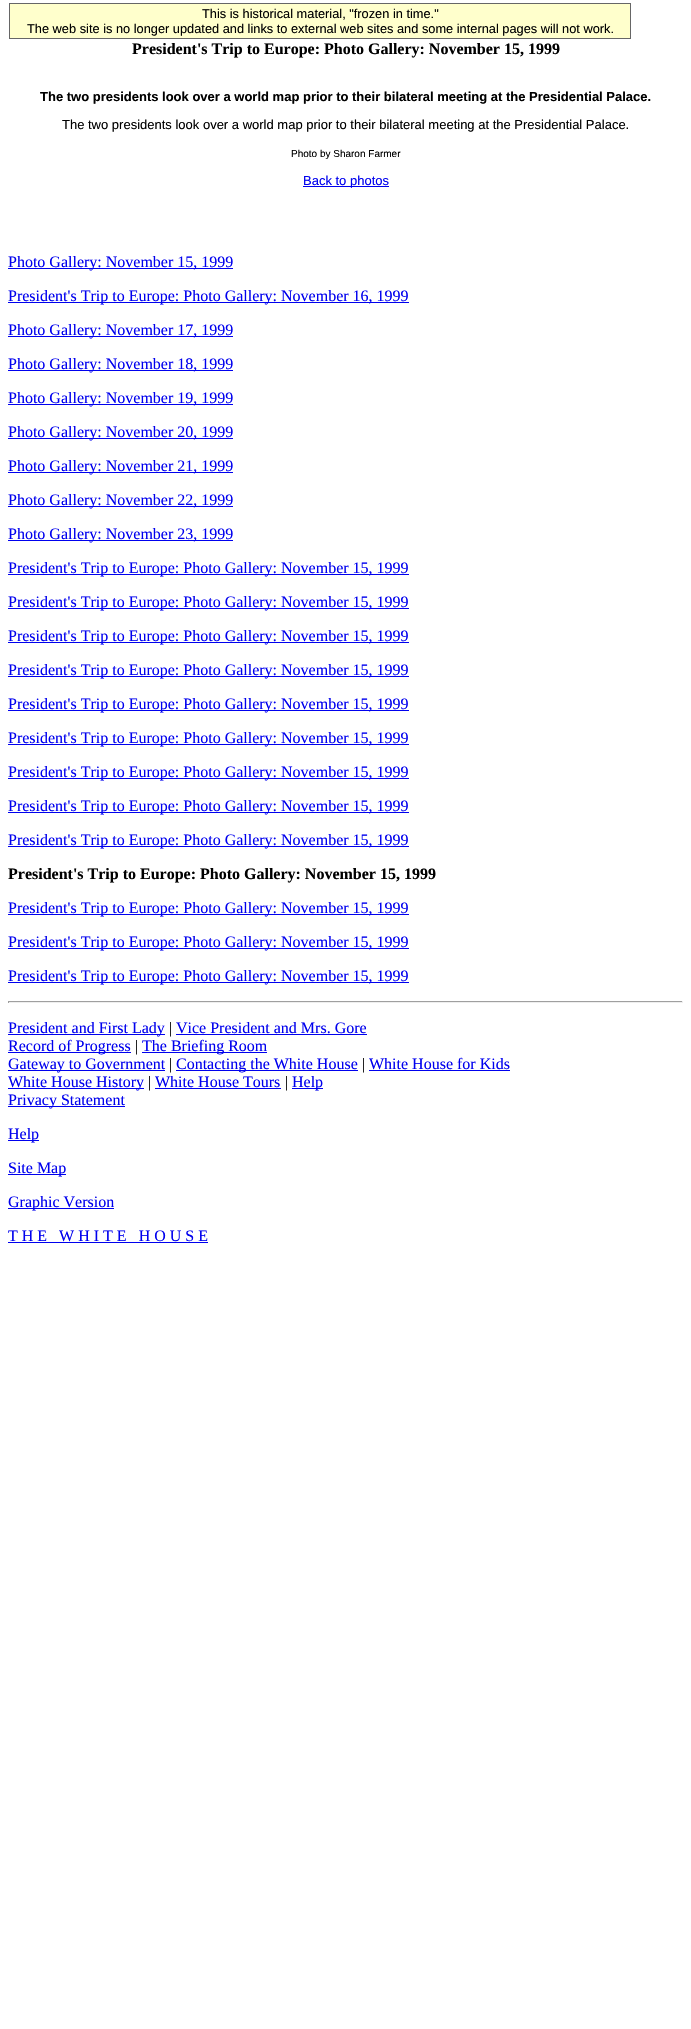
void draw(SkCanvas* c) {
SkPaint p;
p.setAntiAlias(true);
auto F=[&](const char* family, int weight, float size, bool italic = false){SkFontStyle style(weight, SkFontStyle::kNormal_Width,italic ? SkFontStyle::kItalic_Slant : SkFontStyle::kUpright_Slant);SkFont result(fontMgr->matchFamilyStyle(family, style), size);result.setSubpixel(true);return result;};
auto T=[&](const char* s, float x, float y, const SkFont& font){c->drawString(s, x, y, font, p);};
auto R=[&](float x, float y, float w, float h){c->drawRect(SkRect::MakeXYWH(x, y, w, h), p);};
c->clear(0xffffffff);
p.setColor(0xffffffcc);
c->drawRect(SkRect::MakeXYWH(9.5,3.5,621,35),p);
p.setStroke(true);
p.setStrokeWidth(1);
p.setColor(0xff666666);
c->drawRect(SkRect::MakeXYWH(9.5,3.5,621,35),p);
auto f1 = F("Liberation Sans",400,12.8);
p.setStroke(false);
p.setColor(0xff000000);
T("This is historical material, \"frozen in time.\"",202,18,f1);
T("The web site is no longer updated and links to external web sites and some internal pages will not work.",27,33,f1);
auto f2 = F("Liberation Serif",700,16);
T("President's Trip to Europe: Photo Gallery: November 15, 1999",132,54,f2);
auto f3 = F("Liberation Sans",700,13);
T("The two presidents look over a world map prior to their bilateral meeting at the Presidential Palace.",40,101,f3);
auto f4 = F("Liberation Sans",400,13);
T("The two presidents look over a world map prior to their bilateral meeting at the Presidential Palace.",62,129,f4);
auto f5 = F("Liberation Sans",400,10);
T("Photo by Sharon Farmer",291,157,f5);
p.setColor(0xff0000ee);
R(303,186,86,1);
T("Back to photos",303,185,f4);
R(8,268,225,1);
auto f6 = F("Liberation Serif",400,16);
T("Photo Gallery: November 15, 1999",8,267,f6);
R(8,302,401,1);
T("President's Trip to Europe: Photo Gallery: November 16, 1999",8,301,f6);
R(8,336,225,1);
T("Photo Gallery: November 17, 1999",8,335,f6);
R(8,370,225,1);
T("Photo Gallery: November 18, 1999",8,369,f6);
R(8,404,225,1);
T("Photo Gallery: November 19, 1999",8,403,f6);
R(8,438,225,1);
T("Photo Gallery: November 20, 1999",8,437,f6);
R(8,472,225,1);
T("Photo Gallery: November 21, 1999",8,471,f6);
R(8,506,225,1);
T("Photo Gallery: November 22, 1999",8,505,f6);
R(8,540,225,1);
T("Photo Gallery: November 23, 1999",8,539,f6);
R(8,574,401,1);
T("President's Trip to Europe: Photo Gallery: November 15, 1999",8,573,f6);
R(8,608,401,1);
T("President's Trip to Europe: Photo Gallery: November 15, 1999",8,607,f6);
R(8,642,401,1);
T("President's Trip to Europe: Photo Gallery: November 15, 1999",8,641,f6);
R(8,676,401,1);
T("President's Trip to Europe: Photo Gallery: November 15, 1999",8,675,f6);
R(8,710,401,1);
T("President's Trip to Europe: Photo Gallery: November 15, 1999",8,709,f6);
R(8,744,401,1);
T("President's Trip to Europe: Photo Gallery: November 15, 1999",8,743,f6);
R(8,778,401,1);
T("President's Trip to Europe: Photo Gallery: November 15, 1999",8,777,f6);
R(8,812,401,1);
T("President's Trip to Europe: Photo Gallery: November 15, 1999",8,811,f6);
R(8,846,401,1);
T("President's Trip to Europe: Photo Gallery: November 15, 1999",8,845,f6);
p.setColor(0xff000000);
T("President's Trip to Europe: Photo Gallery: November 15, 1999",8,879,f2);
p.setColor(0xff0000ee);
R(8,914,401,1);
T("President's Trip to Europe: Photo Gallery: November 15, 1999",8,913,f6);
R(8,948,401,1);
T("President's Trip to Europe: Photo Gallery: November 15, 1999",8,947,f6);
R(8,982,401,1);
T("President's Trip to Europe: Photo Gallery: November 15, 1999",8,981,f6);
p.setColor(0xff9f9f9f);
R(8,1001,675,1);
p.setColor(0xffeeeeee);
R(682,1001,1,2);
R(8,1002,675,1);
p.setColor(0xff9f9f9f);
R(8,1001,1,2);
p.setColor(0xff0000ee);
R(8,1034,157,1);
T("President and First Lady",8,1033,f6);
p.setColor(0xff000000);
T("|",169,1033,f6);
p.setColor(0xff0000ee);
T("Vice President and Mrs. Gore",176,1033,f6);
R(176,1034,191,1);
R(8,1052,123,1);
T("Record of Progress",8,1051,f6);
p.setColor(0xff000000);
T("|",135,1051,f6);
p.setColor(0xff0000ee);
R(142,1052,125,1);
T("The Briefing Room",142,1051,f6);
R(8,1070,157,1);
T("Gateway to Government",8,1069,f6);
p.setColor(0xff000000);
T("|",169,1069,f6);
p.setColor(0xff0000ee);
R(176,1070,182,1);
T("Contacting the White House",176,1069,f6);
p.setColor(0xff000000);
T("|",362,1069,f6);
p.setColor(0xff0000ee);
T("White House for Kids",369,1069,f6);
R(369,1070,141,1);
R(8,1088,136,1);
T("White House History",8,1087,f6);
p.setColor(0xff000000);
T("|",148,1087,f6);
p.setColor(0xff0000ee);
T("White House Tours",155,1087,f6);
R(155,1088,126,1);
p.setColor(0xff000000);
T("|",285,1087,f6);
p.setColor(0xff0000ee);
R(292,1088,31,1);
T("Help",292,1087,f6);
R(8,1106,117,1);
T("Privacy Statement",8,1105,f6);
R(8,1140,31,1);
T("Help",8,1139,f6);
R(8,1174,58,1);
T("Site Map",8,1173,f6);
R(8,1208,106,1);
T("Graphic Version",8,1207,f6);
T("T H E   W H I T E   H O U S E",8,1241,f6);
R(8,1242,200,1);
}
